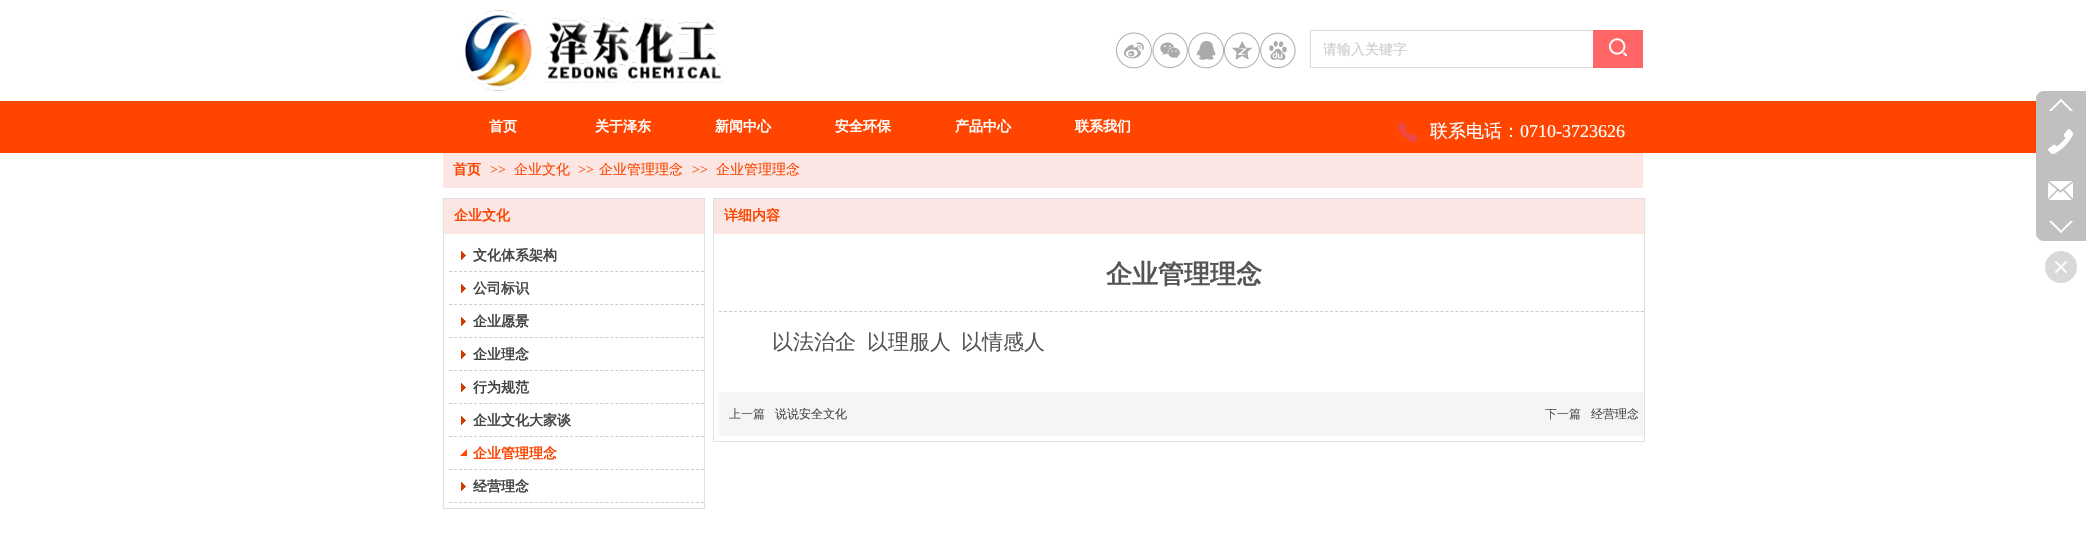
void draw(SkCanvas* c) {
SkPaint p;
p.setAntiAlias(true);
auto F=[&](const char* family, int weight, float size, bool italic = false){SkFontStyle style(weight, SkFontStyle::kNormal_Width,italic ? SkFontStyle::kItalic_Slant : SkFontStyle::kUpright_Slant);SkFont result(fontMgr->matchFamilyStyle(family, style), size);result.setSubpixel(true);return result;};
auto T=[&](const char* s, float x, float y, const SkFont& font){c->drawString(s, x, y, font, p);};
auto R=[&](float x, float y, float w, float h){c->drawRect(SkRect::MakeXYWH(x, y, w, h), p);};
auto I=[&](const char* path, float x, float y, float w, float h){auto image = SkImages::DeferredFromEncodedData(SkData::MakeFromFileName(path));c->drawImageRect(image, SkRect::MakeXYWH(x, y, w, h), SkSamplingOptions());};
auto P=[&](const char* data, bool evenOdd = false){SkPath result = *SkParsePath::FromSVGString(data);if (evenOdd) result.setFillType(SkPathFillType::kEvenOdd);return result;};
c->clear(0xffffffff);
p.setColor(0xffff4500);
R(0,101,2036,52);
auto f1 = F("WenQuanYi Zen Hei",700,14);
p.setColor(0xffffffff);
T("首页",489,131,f1);
T("关于泽东",595,131,f1);
T("新闻中心",715,131,f1);
T("安全环保",835,131,f1);
T("产品中心",955,131,f1);
T("联系我们",1075,131,f1);
I("1.png",463,10,262,81);
I("2.png",1116,32,36,37);
I("3.png",1152,32,36,37);
I("4.png",1188,32,36,37);
I("5.png",1224,32,36,37);
I("6.png",1260,32,36,37);
p.setStroke(true);
p.setStrokeWidth(1);
p.setColor(0xffdbdbdb);
c->drawRect(SkRect::MakeXYWH(1310.5,30.5,332,37),p);
auto f2 = F("WenQuanYi Zen Hei",500,14);
p.setStroke(false);
p.setColor(0xffcccccc);
T("请输入关键字",1323,54,f2);
p.setColor(0xffff6666);
R(1593,30,50,38);
I("7.png",1609,38,18,19);
I("8.png",1398,122,20,20);
auto f3 = F("WenQuanYi Zen Hei",500,18);
p.setColor(0xffffffff);
T("联系电话：",1430,137,f3);
auto f4 = F("Liberation Serif",400,18);
T("0710-3723626",1520,137,f4);
I("9.png",2036,91,7,7);
p.setColor(0xffc1bfc0);
R(2043,91,43,7);
R(2036,98,50,136);
I("10.png",2049,99,24,12);
I("11.png",2048,129,25,25);
I("12.png",2048,181,25,19);
I("13.png",2049,221,24,12);
I("14.png",2036,234,7,7);
R(2043,234,43,7);
I("15.png",2045,251,32,32);
p.setColor(0xfffbe6e3);
R(443,153,1200,35);
p.setColor(0xfffd4500);
T("首页",453,174,f1);
auto f5 = F("Liberation Serif",400,14);
T(">>",490,174,f5);
T("企业文化",514,174,f2);
T(">>",578,174,f5);
T("企业管理理念",599,174,f2);
T(">>",692,174,f5);
T("企业管理理念",716,174,f2);
p.setStroke(true);
p.setColor(0xffe0dfdd);
c->drawRect(SkRect::MakeXYWH(443.5,198.5,261,310),p);
p.setStroke(false);
p.setColor(0xfffbe6e3);
R(444,199,260,35);
p.setColor(0xfffd4500);
T("企业文化",454,220,f1);
c->save();
c->clipRect(SkRect::MakeXYWH(449,239,255,33));
p.setStroke(true);
p.setColor(0xffcccccc);
p.setPathEffect(SkDashPathEffect::Make({{3,2.04f}}, 0));
c->drawPath(P("M449 271.5h260"),p);
p.setPathEffect(nullptr);
c->restore();
I("16.png",461,251,5,9);
p.setStroke(false);
p.setColor(0xff444444);
T("文化体系架构",473,260,f1);
c->save();
c->clipRect(SkRect::MakeXYWH(449,272,255,33));
p.setStroke(true);
p.setColor(0xffcccccc);
p.setPathEffect(SkDashPathEffect::Make({{3,2.04f}}, 0));
c->drawPath(P("M449 304.5h260"),p);
p.setPathEffect(nullptr);
c->restore();
I("16.png",461,284,5,9);
p.setStroke(false);
p.setColor(0xff444444);
T("公司标识",473,293,f1);
c->save();
c->clipRect(SkRect::MakeXYWH(449,305,255,33));
p.setStroke(true);
p.setColor(0xffcccccc);
p.setPathEffect(SkDashPathEffect::Make({{3,2.04f}}, 0));
c->drawPath(P("M449 337.5h260"),p);
p.setPathEffect(nullptr);
c->restore();
I("16.png",461,317,5,9);
p.setStroke(false);
p.setColor(0xff444444);
T("企业愿景",473,326,f1);
c->save();
c->clipRect(SkRect::MakeXYWH(449,338,255,33));
p.setStroke(true);
p.setColor(0xffcccccc);
p.setPathEffect(SkDashPathEffect::Make({{3,2.04f}}, 0));
c->drawPath(P("M449 370.5h260"),p);
p.setPathEffect(nullptr);
c->restore();
I("16.png",461,350,5,9);
p.setStroke(false);
p.setColor(0xff444444);
T("企业理念",473,359,f1);
c->save();
c->clipRect(SkRect::MakeXYWH(449,371,255,33));
p.setStroke(true);
p.setColor(0xffcccccc);
p.setPathEffect(SkDashPathEffect::Make({{3,2.04f}}, 0));
c->drawPath(P("M449 403.5h260"),p);
p.setPathEffect(nullptr);
c->restore();
I("16.png",461,383,5,9);
p.setStroke(false);
p.setColor(0xff444444);
T("行为规范",473,392,f1);
c->save();
c->clipRect(SkRect::MakeXYWH(449,404,255,33));
p.setStroke(true);
p.setColor(0xffcccccc);
p.setPathEffect(SkDashPathEffect::Make({{3,2.04f}}, 0));
c->drawPath(P("M449 436.5h260"),p);
p.setPathEffect(nullptr);
c->restore();
I("16.png",461,416,5,9);
p.setStroke(false);
p.setColor(0xff444444);
T("企业文化大家谈",473,425,f1);
c->save();
c->clipRect(SkRect::MakeXYWH(449,437,255,33));
p.setStroke(true);
p.setColor(0xffcccccc);
p.setPathEffect(SkDashPathEffect::Make({{3,2.04f}}, 0));
c->drawPath(P("M449 469.5h260"),p);
p.setPathEffect(nullptr);
c->restore();
I("17.png",460,449,7,7);
p.setStroke(false);
p.setColor(0xfffd4500);
T("企业管理理念",473,458,f1);
c->save();
c->clipRect(SkRect::MakeXYWH(449,470,255,33));
p.setStroke(true);
p.setColor(0xffcccccc);
p.setPathEffect(SkDashPathEffect::Make({{3,2.04f}}, 0));
c->drawPath(P("M449 502.5h260"),p);
p.setPathEffect(nullptr);
c->restore();
I("16.png",461,482,5,9);
p.setStroke(false);
p.setColor(0xff444444);
T("经营理念",473,491,f1);
p.setStroke(true);
p.setColor(0xffe0dfdd);
c->drawRect(SkRect::MakeXYWH(713.5,198.5,931,243),p);
p.setStroke(false);
p.setColor(0xfffbe6e3);
R(714,199,930,35);
p.setColor(0xfffd4500);
T("详细内容",724,220,f1);
c->save();
c->clipRect(SkRect::MakeXYWH(719,239,925,197));
p.setStroke(true);
p.setColor(0xffcccccc);
p.setPathEffect(SkDashPathEffect::Make({{3,2.01f}}, 0));
c->drawPath(P("M719 311.5h930"),p);
p.setPathEffect(nullptr);
c->restore();
auto f6 = F("WenQuanYi Zen Hei",700,26);
p.setStroke(false);
p.setColor(0xff555555);
T("企业管理理念",1106,283,f6);
auto f7 = F("WenQuanYi Zen Hei",500,21);
T("以法治企",772,349,f7);
T("以理服人",867,349,f7);
T("以情感人",961,349,f7);
p.setColor(0xfff5f5f5);
R(719,392,925,44);
auto f8 = F("WenQuanYi Zen Hei",500,12);
p.setColor(0xff555555);
T("上一篇",729,418,f8);
p.setColor(0xff444444);
T("说说安全文化",775,418,f8);
p.setColor(0xff555555);
T("下一篇",1545,418,f8);
p.setColor(0xff444444);
T("经营理念",1591,418,f8);
}
